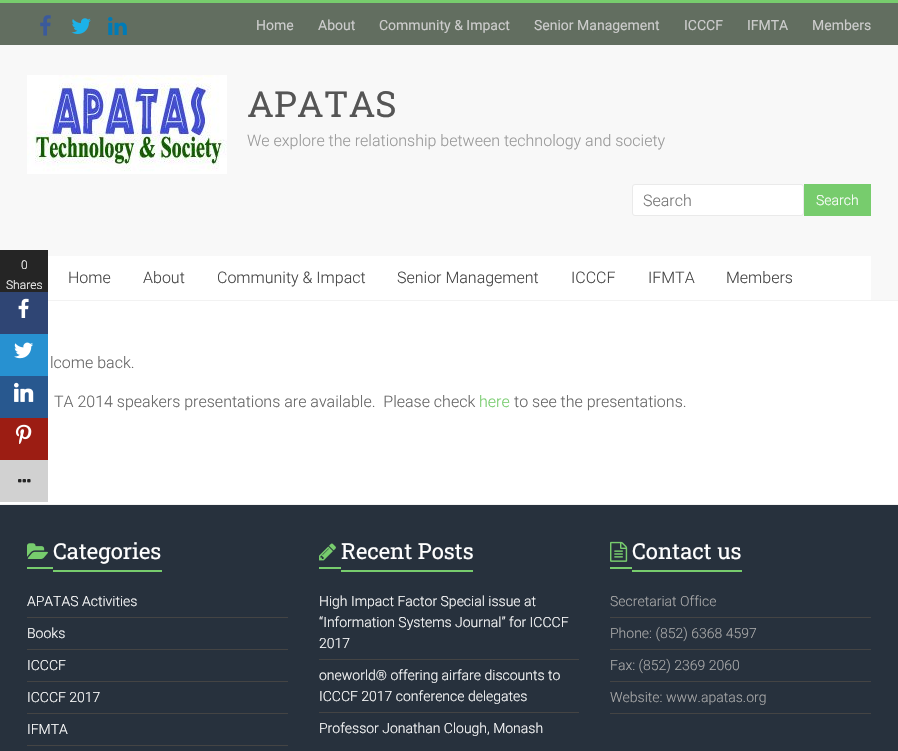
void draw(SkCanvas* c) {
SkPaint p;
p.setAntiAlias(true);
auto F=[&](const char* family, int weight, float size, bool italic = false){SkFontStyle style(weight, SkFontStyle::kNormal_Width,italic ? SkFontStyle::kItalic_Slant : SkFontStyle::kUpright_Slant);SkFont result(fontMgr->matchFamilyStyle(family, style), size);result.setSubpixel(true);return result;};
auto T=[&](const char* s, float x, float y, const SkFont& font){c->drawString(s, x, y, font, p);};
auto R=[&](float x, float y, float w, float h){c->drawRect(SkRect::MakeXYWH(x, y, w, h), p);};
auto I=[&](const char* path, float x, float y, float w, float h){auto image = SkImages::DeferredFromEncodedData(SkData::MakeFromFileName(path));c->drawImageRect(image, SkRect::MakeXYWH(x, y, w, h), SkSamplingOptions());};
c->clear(0xffffffff);
p.setColor(0xfff8f8f8);
R(0,45,898,255);
p.setColor(0xff252525);
R(0,250,48,42);
auto f1 = F("Roboto",300,12);
p.setColor(0xffffffff);
T("0",21,269,f1);
T("Shares",6,289,f1);
p.setColor(0xff2f4574);
R(0,292,48,42);
I("1.png",18,298,11,20);
p.setColor(0xff2791d1);
R(0,334,48,42);
I("2.png",14,342,19,17);
p.setColor(0xff28588f);
R(0,376,48,42);
I("3.png",14,382,20,20);
p.setColor(0xff9c1d13);
R(0,418,48,42);
I("4.png",15,424,17,20);
p.setColor(0xffd1d1d1);
R(0,460,48,42);
I("5.png",18,479,13,4);
p.setColor(0xff77cc6d);
R(0,0,898,3);
p.setColor(0xff626e60);
R(0,3,898,42);
I("6.png",40,15,11,21);
I("7.png",71,18,20,16);
I("8.png",108,17,19,18);
auto f2 = F("Roboto",400,14);
p.setColor(0xffcccccc);
T("Home",256,30,f2);
T("About",318,30,f2);
T("Community & Impact",379,30,f2);
T("Senior Management",534,30,f2);
T("ICCCF",684,30,f2);
T("IFMTA",747,30,f2);
T("Members",812,30,f2);
p.setColor(0xfff2f2f2);
R(48,300,850,1);
I("9.png",27,75,200,99);
auto f3 = F("Roboto Slab",400,36);
p.setColor(0xff555555);
T("APATAS",247,117,f3);
auto f4 = F("Roboto",300,16);
p.setColor(0xff999999);
T("We explore the relationship between technology and society",247,146,f4);
p.setColor(0xffffffff);
c->drawRoundRect(SkRect::MakeXYWH(632.5,184.5,171,31),2.5,2.5,p);
p.setStroke(true);
p.setStrokeWidth(1);
p.setColor(0xffeaeaea);
c->drawRoundRect(SkRect::MakeXYWH(632.5,184.5,171,31),2.5,2.5,p);
p.setStroke(false);
p.setColor(0xff757575);
T("Search",643,206,f4);
p.setColor(0xff77cc6d);
R(804,184,67,32);
auto f5 = F("Roboto",300,14);
p.setColor(0xffffffff);
T("Search",816,205,f5);
R(48,256,823,44);
p.setColor(0xff444444);
T("Home",68,283,f4);
T("About",143,283,f4);
T("Community & Impact",217,283,f4);
T("Senior Management",397,283,f4);
T("ICCCF",571,283,f4);
T("IFMTA",648,283,f4);
T("Members",726,283,f4);
p.setColor(0xff666666);
T("lcome back.",50,368,f4);
T("TA 2014 speakers presentations are available.  Please check",54,407,f4);
p.setColor(0xff77cc6d);
T("here",479,407,f4);
p.setColor(0xff666666);
T("to see the presentations.",514,407,f4);
p.setColor(0xff27313d);
R(0,505,898,246);
p.setColor(0xfff2f2f2);
R(0,504,898,1);
I("10.png",27,543,21,16);
auto f6 = F("Roboto Slab",400,22);
p.setColor(0xffffffff);
T("Categories",53,559,f6);
p.setColor(0xff77cc6d);
R(27,567,26,2);
R(53,570,109,2);
p.setColor(0xff444444);
R(27,617,261,1);
p.setColor(0xffffffff);
T("APATAS Activities",27,606,f5);
p.setColor(0xff444444);
R(27,649,261,1);
p.setColor(0xffffffff);
T("Books",27,638,f5);
p.setColor(0xff444444);
R(27,681,261,1);
p.setColor(0xffffffff);
T("ICCCF",27,670,f5);
p.setColor(0xff444444);
R(27,713,261,1);
p.setColor(0xffffffff);
T("ICCCF 2017",27,702,f5);
p.setColor(0xff444444);
R(27,745,261,1);
p.setColor(0xffffffff);
T("IFMTA",27,734,f5);
I("11.png",319,543,17,18);
T("Recent Posts",341,559,f6);
p.setColor(0xff77cc6d);
R(319,567,22,2);
R(341,570,132,2);
p.setColor(0xff444444);
R(319,659,260,1);
p.setColor(0xffffffff);
T("High Impact Factor Special issue at",319,606,f5);
T("“Information Systems Journal” for ICCCF",319,627,f5);
T("2017",319,648,f5);
p.setColor(0xff444444);
R(319,712,260,1);
p.setColor(0xffffffff);
T("oneworld® offering airfare discounts to",319,680,f5);
T("ICCCF 2017 conference delegates",319,701,f5);
T("Professor Jonathan Clough, Monash",319,733,f5);
I("12.png",610,541,18,21);
T("Contact us",632,559,f6);
p.setColor(0xff77cc6d);
R(610,567,22,2);
R(632,570,110,2);
p.setColor(0xff444444);
R(610,617,261,1);
p.setColor(0xffaaaaaa);
T("Secretariat Office",610,606,f5);
p.setColor(0xff444444);
R(610,649,261,1);
p.setColor(0xffaaaaaa);
T("Phone: (852) 6368 4597",610,638,f5);
p.setColor(0xff444444);
R(610,681,261,1);
p.setColor(0xffaaaaaa);
T("Fax: (852) 2369 2060",610,670,f5);
p.setColor(0xff444444);
R(610,713,261,1);
p.setColor(0xffaaaaaa);
T("Website: www.apatas.org",610,702,f5);
}
